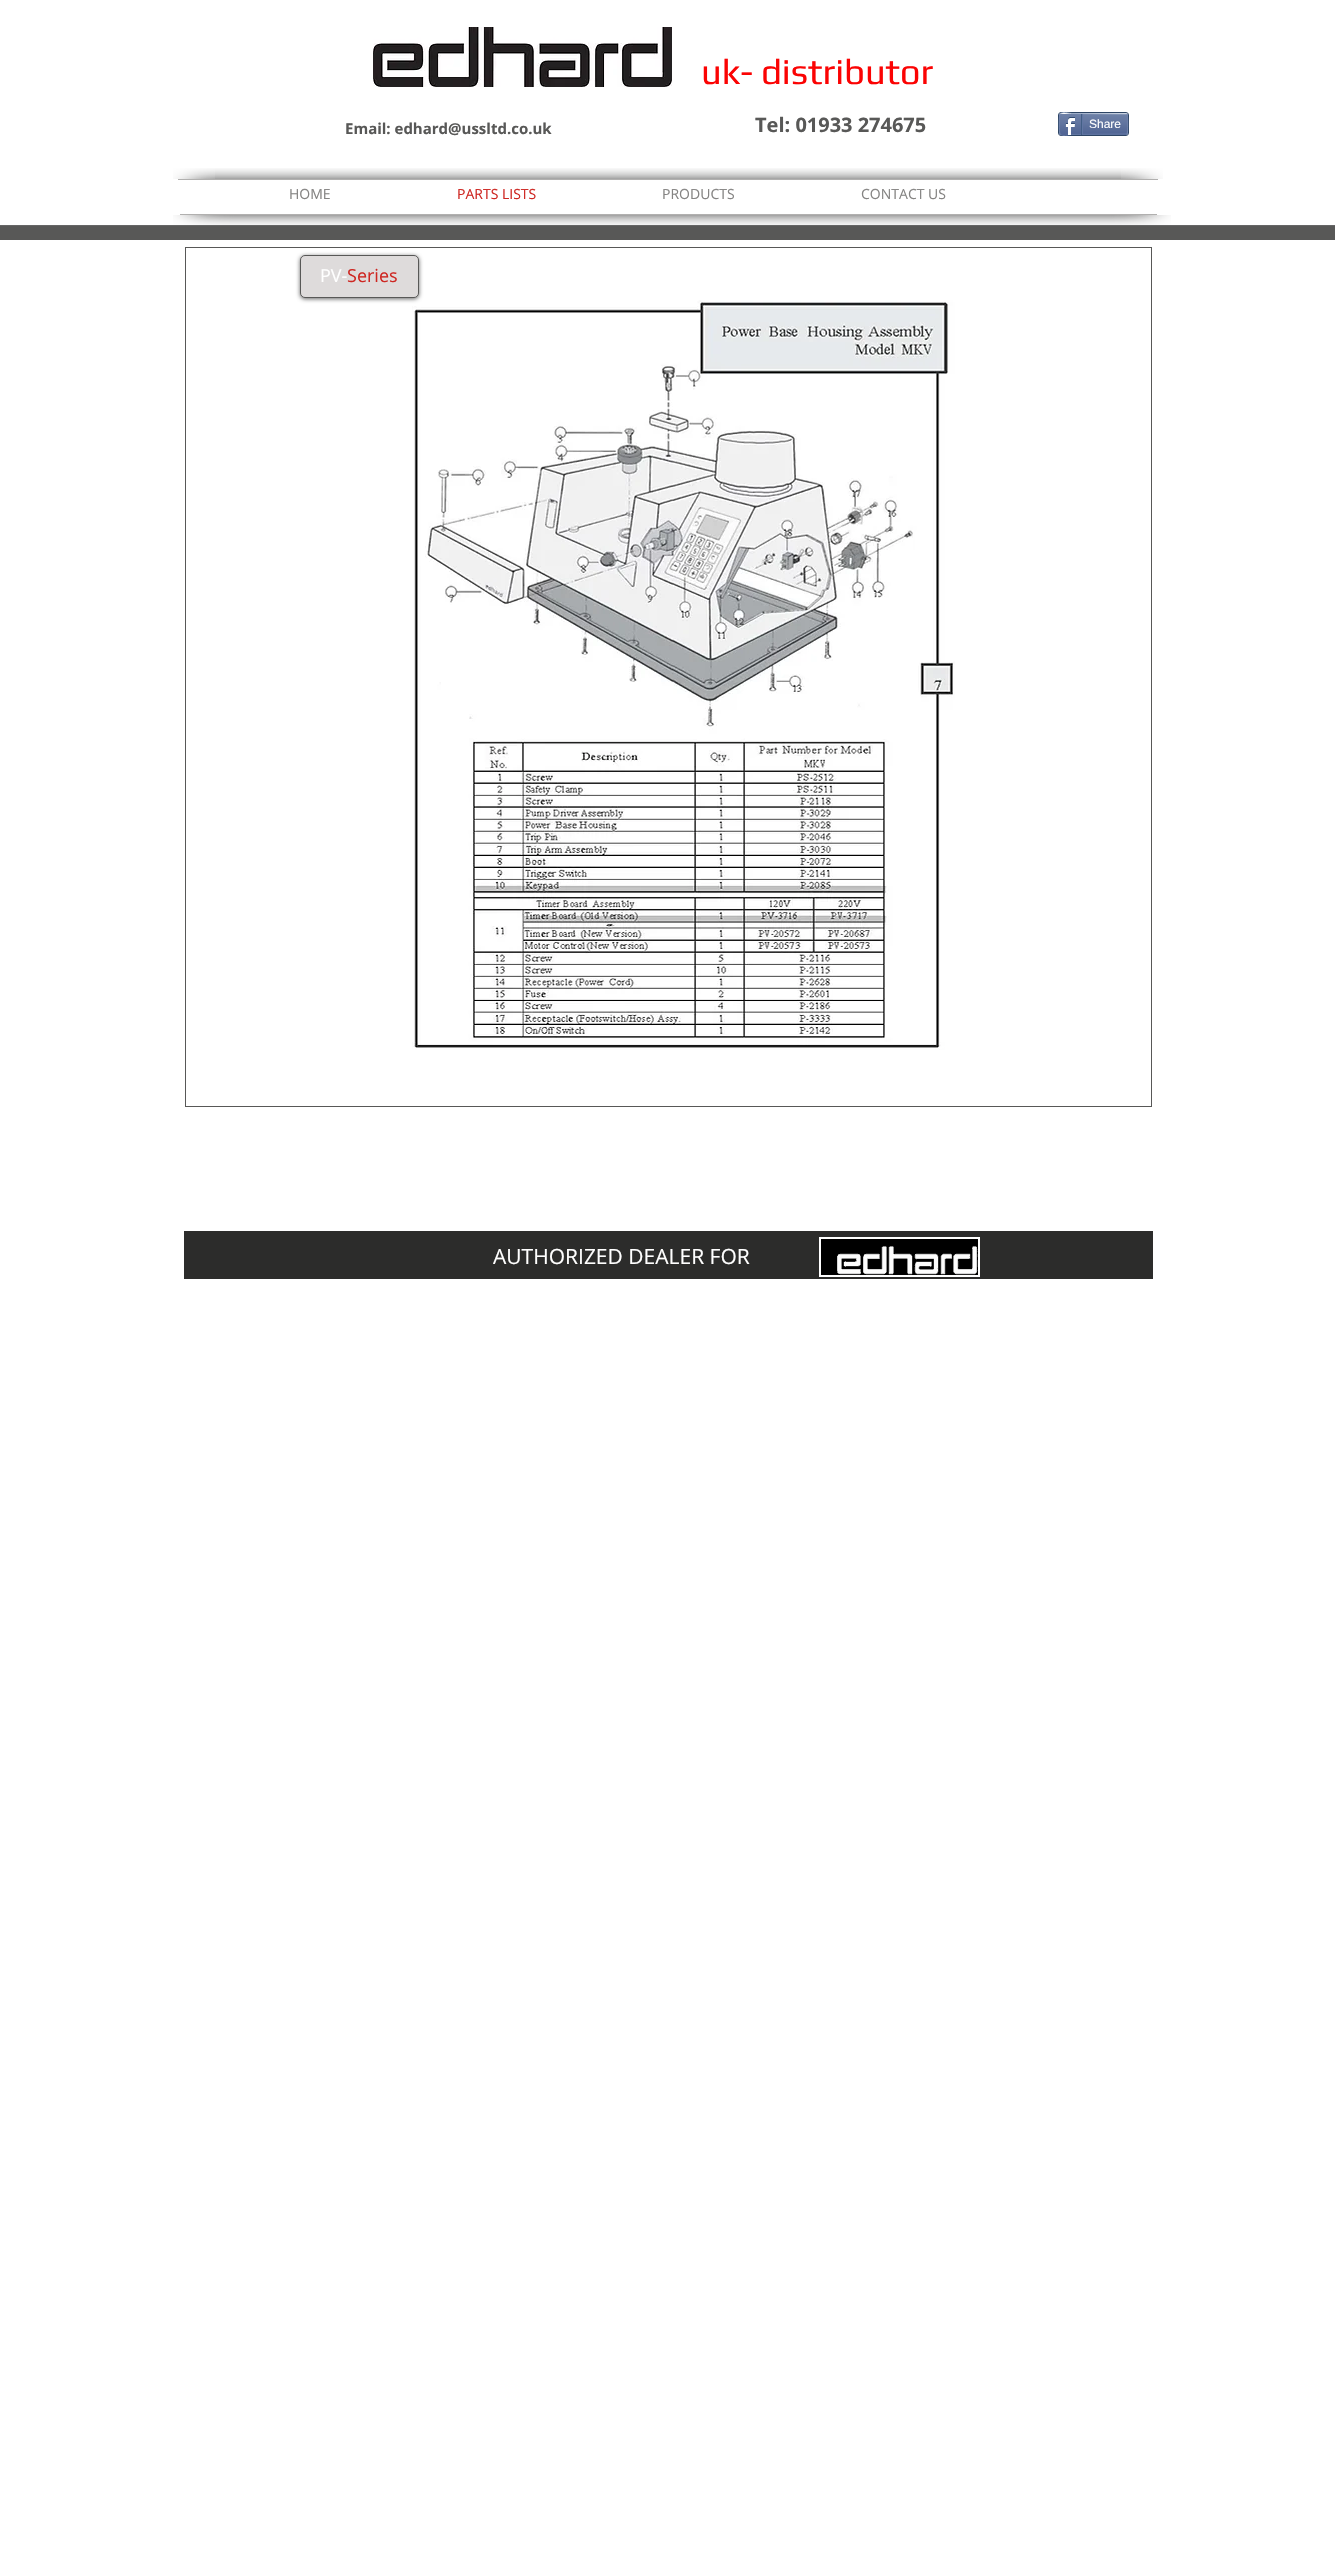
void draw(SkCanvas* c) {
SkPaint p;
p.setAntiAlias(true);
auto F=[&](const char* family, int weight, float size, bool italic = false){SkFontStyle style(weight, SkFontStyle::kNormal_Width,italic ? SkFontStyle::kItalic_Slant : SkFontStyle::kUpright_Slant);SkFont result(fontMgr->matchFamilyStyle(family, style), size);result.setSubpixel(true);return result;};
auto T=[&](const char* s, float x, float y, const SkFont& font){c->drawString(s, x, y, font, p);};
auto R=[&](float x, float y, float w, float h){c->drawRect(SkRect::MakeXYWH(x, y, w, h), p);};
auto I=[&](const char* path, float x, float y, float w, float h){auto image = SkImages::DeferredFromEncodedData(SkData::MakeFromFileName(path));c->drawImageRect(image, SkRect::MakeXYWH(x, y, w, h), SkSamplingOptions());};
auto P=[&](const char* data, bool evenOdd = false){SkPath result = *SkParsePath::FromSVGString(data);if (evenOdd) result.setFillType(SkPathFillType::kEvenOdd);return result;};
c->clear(0xffffffff);
I("1.png",373,27,299,60);
auto f1 = F("Play",400,36);
p.setColor(0xfffb0303);
T("uk- distributor",701,84,f1);
auto f2 = F("Open Sans",700,15);
p.setColor(0xff585857);
T("Email: edhard@ussltd.co.uk",345,134,f2);
auto f3 = F("Open Sans",700,20);
T("Tel: 01933 274675",755,132,f3);
p.setStroke(true);
p.setStrokeWidth(1);
p.setColor(0xff2d4565);
c->drawRoundRect(SkRect::MakeXYWH(1058.5,112.5,70,23),2.5,2.5,p);
I("2.png",1059,114,69,21);
p.setColor(0xff9aabc6);
c->drawPath(P("M1060 114c3-3 8-.5 12-.5l55 .5"),p);
p.setColor(0xff6f83ad);
c->drawPath(P("M1127 114c1 .5 1 19.5 0 20"),p);
p.setColor(0xff6176a3);
c->drawPath(P("M1127 134l-55 .5c-4 0-9 2.5-12-.5"),p);
p.setColor(0xff6f83ad);
c->drawPath(P("M1060 134c-1-.5-1-19.5 0-20"),p);
I("3.png",1065,117,10,18);
p.setStroke(false);
p.setColor(0xff425e85);
R(1081,114,1,21);
auto f4 = F("Liberation Sans",400,12);
p.setColor(0xffffffff);
T("Share",1089,128,f4);
p.setColor(0xff6176a3);
R(1082,114,1,20);
p.setColor(0xffb1b0af);
R(178,179,980,1);
auto f5 = F("Open Sans",400,14);
p.setColor(0xff858483);
T("HOME",289,199,f5);
p.setColor(0xffce2621);
T("PARTS LISTS",457,199,f5);
p.setColor(0xff858483);
T("PRODUCTS",662,199,f5);
T("CONTACT US",861,199,f5);
I("4.png",215,168,906,23);
I("5.png",173,168,42,11);
I("6.png",1121,168,42,11);
p.setColor(0xffb1b0af);
R(180,214,977,1);
I("7.png",173,215,97,10);
I("8.png",270,215,804,10);
I("9.png",1074,215,97,10);
p.setColor(0xff666666);
R(0,225,1335,1);
p.setStroke(true);
p.setColor(0xff585857);
c->drawRect(SkRect::MakeXYWH(185.5,247.5,966,859),p);
I("10.png",412,300,543,750);
p.setStroke(false);
p.setColor(0x99000000);
p.setMaskFilter(SkMaskFilter::MakeBlur(kNormal_SkBlurStyle, 2));
c->drawRoundRect(SkRect::MakeXYWH(300,256,119,43),5,5,p);
p.setMaskFilter(nullptr);
p.setColor(0xffdedbdb);
c->drawRoundRect(SkRect::MakeXYWH(300.5,255.5,118,42),4.5,4.5,p);
p.setStroke(true);
p.setColor(0xff585857);
c->drawRoundRect(SkRect::MakeXYWH(300.5,255.5,118,42),4.5,4.5,p);
auto f6 = F("Open Sans",400,18);
p.setStroke(false);
p.setColor(0xffffffff);
T("PV-",320,282,f6);
p.setColor(0xffce2621);
T("Series",347,282,f6);
p.setColor(0xff585857);
R(0,226,1335,14);
p.setColor(0xff2c2c2b);
R(184,1231,969,48);
auto f7 = F("Open Sans",400,21);
p.setColor(0xffffffff);
T("AUTHORIZED DEALER FOR",493,1264,f7);
R(819,1237,161,40);
I("11.png",821,1239,157,36);
}
